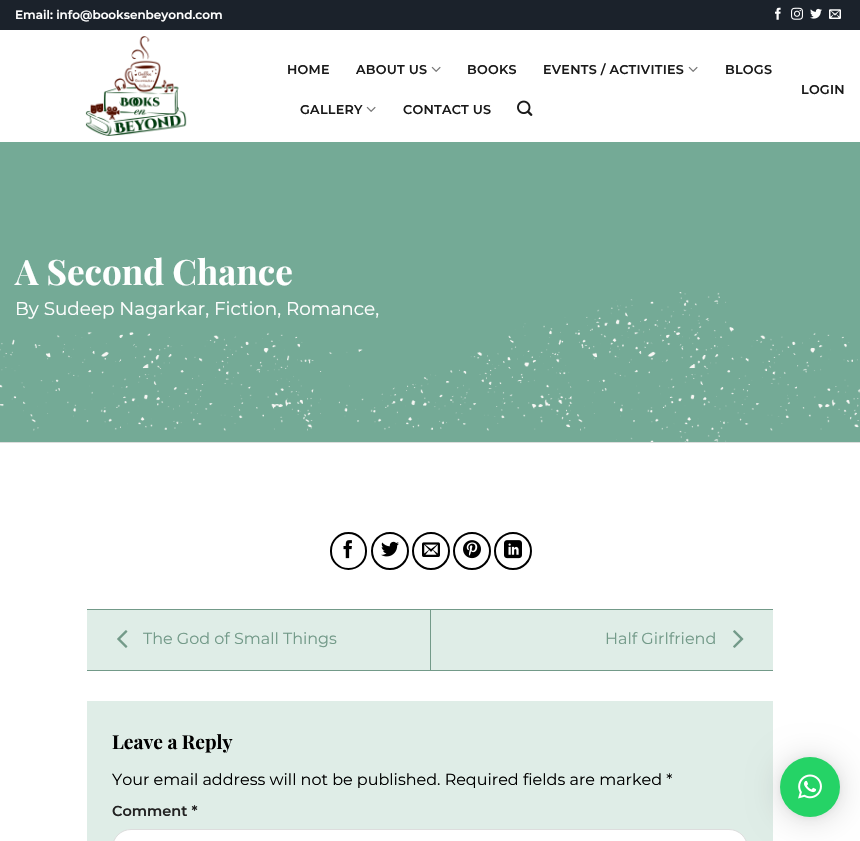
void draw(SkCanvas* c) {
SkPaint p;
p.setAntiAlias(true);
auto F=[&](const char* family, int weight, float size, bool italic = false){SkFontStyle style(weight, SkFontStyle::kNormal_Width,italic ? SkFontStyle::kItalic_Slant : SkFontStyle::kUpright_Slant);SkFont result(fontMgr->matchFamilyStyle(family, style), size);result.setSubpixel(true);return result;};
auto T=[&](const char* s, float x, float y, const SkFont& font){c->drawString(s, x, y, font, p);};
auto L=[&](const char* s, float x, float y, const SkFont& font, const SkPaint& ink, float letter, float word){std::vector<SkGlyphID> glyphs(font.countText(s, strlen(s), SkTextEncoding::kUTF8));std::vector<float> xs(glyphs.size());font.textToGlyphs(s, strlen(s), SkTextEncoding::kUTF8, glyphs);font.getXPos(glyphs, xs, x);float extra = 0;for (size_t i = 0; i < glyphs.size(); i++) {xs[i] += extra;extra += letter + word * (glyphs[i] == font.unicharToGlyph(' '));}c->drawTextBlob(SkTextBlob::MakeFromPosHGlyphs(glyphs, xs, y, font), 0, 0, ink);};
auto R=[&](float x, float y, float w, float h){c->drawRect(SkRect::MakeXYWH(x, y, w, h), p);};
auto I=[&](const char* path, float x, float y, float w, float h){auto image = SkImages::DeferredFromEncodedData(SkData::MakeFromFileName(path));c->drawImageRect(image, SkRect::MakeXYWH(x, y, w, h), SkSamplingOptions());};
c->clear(0xffffffff);
p.setColor(0xff1b222b);
R(0,0,860,30);
auto f1 = F("Montserrat",600,12);
p.setColor(0xffffffff);
T("Email: info@booksenbeyond.com",15,19,f1);
I("1.png",775,7,6,13);
I("2.png",791,7,12,13);
I("3.png",810,8,12,11);
I("4.png",829,9,12,10);
I("5.png",85,36,102,100);
auto f2 = F("Montserrat",600,12.75);
p.setColor(0xff1a1a1a);
L("HOME",287,74,f2,p,.25,0);
L("ABOUT US",356,74,f2,p,.25,0);
I("6.png",431,66,10,6);
L("BOOKS",467,74,f2,p,.25,0);
L("EVENTS / ACTIVITIES",543,74,f2,p,.25,0);
I("6.png",688,66,10,6);
L("BLOGS",725,74,f2,p,.25,0);
L("GALLERY",300,114,f2,p,.25,0);
I("6.png",366,106,10,6);
L("CONTACT US",403,114,f2,p,.25,0);
I("7.png",517,100,16,16);
L("LOGIN",801,94,f2,p,.25,0);
p.setColor(0xff74aa96);
R(0,142,860,300);
I("8.png",0,292,860,150);
auto f3 = F("Playfair Display",700,35);
p.setColor(0xffffffff);
T("A Second Chance",15,285,f3);
auto f4 = F("Montserrat",400,18.4);
T("By Sudeep Nagarkar, Fiction, Romance,",15,315,f4);
p.setColor(0xffdddddd);
R(0,442,860,1);
p.setStroke(true);
p.setStrokeWidth(2);
p.setColor(0xff000000);
c->drawRoundRect(SkRect::MakeXYWH(331,533,35,36),17.5,17.5,p);
I("9.png",343,540,9,19);
c->drawCircle(390,551,18,p);
I("10.png",381,541,18,16);
c->drawCircle(431,551,18,p);
I("11.png",422,542,18,15);
c->drawCircle(472,551,18,p);
I("12.png",463,540,18,19);
c->drawCircle(513,551,18,p);
I("13.png",504,540,18,19);
p.setStroke(false);
p.setColor(0xffdfede7);
R(87,610,686,60);
p.setColor(0xff739a89);
R(87,609,686,1);
R(87,670,686,1);
I("14.png",117,630,11,18);
auto f5 = F("Montserrat",400,16);
T("The God of Small Things",143,644,f5);
R(430,610,1,60);
T("Half Girlfriend",605,644,f5);
I("15.png",733,630,11,18);
p.setColor(0xffdfede7);
R(87,701,686,140);
auto f6 = F("Playfair Display",700,19.25);
p.setColor(0xff000000);
T("Leave a Reply",112,749,f6);
T("Your email address will not be published. Required fields are marked *",112,785,f5);
auto f7 = F("Montserrat",600,14.5);
p.setColor(0xff222222);
T("Comment *",112,816,f7);
p.setColor(0xffffffff);
c->drawRoundRect(SkRect::MakeXYWH(112.5,829.5,635,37),24.5,24.5,p);
p.setStroke(true);
p.setStrokeWidth(1);
p.setColor(0xffdddddd);
c->drawRoundRect(SkRect::MakeXYWH(112.5,829.5,635,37),24.5,24.5,p);
p.setStroke(false);
p.setColor(0x29000000);
p.setMaskFilter(SkMaskFilter::MakeBlur(kNormal_SkBlurStyle, 16));
c->drawRoundRect(SkRect::MakeXYWH(780,759,60,60),30,30,p);
p.setMaskFilter(nullptr);
p.setColor(0x0f000000);
p.setMaskFilter(SkMaskFilter::MakeBlur(kNormal_SkBlurStyle, 3));
c->drawRoundRect(SkRect::MakeXYWH(780,758,60,60),30,30,p);
p.setMaskFilter(nullptr);
p.setColor(0xff25d366);
c->drawCircle(810,787,30,p);
I("16.png",798,774,24,25);
}
